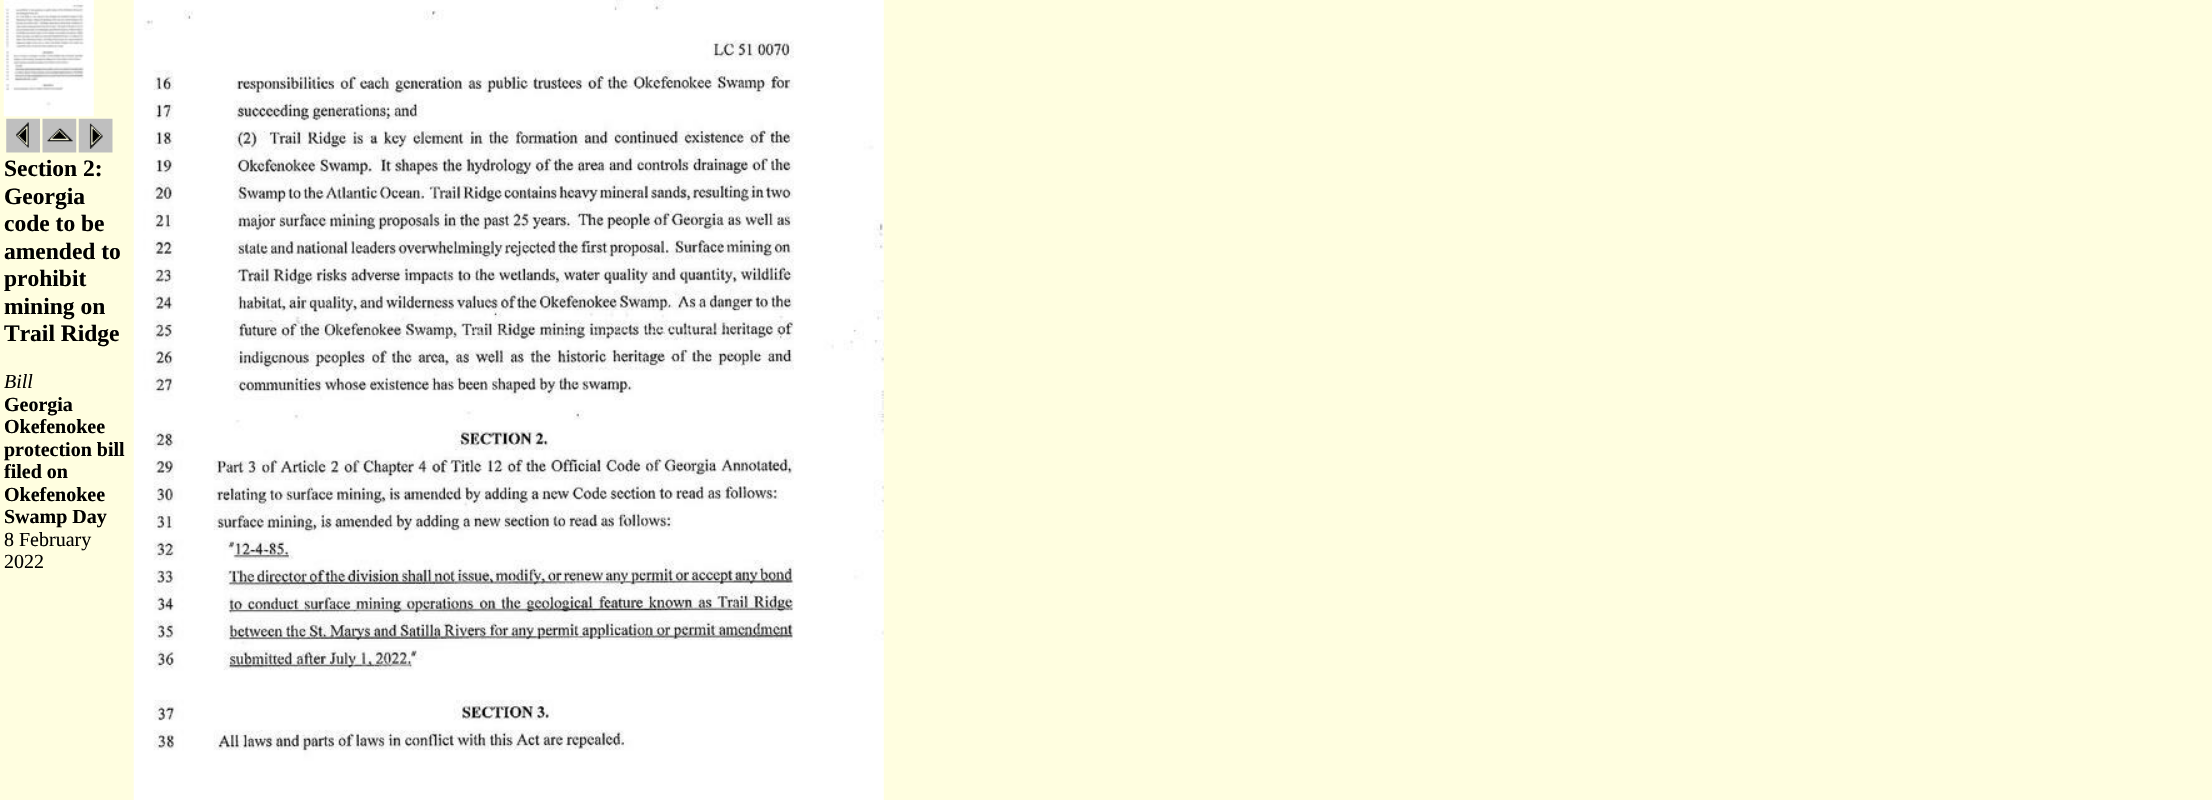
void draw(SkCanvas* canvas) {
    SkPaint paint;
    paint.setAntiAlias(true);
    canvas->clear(0xFFFFFEE0);
    canvas->drawImageRect(SkImages::DeferredFromEncodedData(SkData::MakeFromFileName("img1.png")), SkRect::MakeXYWH(3, 0, 91, 117), SkSamplingOptions());
    canvas->drawImageRect(SkImages::DeferredFromEncodedData(SkData::MakeFromFileName("img2.png")), SkRect::MakeXYWH(6, 118, 34, 35), SkSamplingOptions());
    canvas->drawImageRect(SkImages::DeferredFromEncodedData(SkData::MakeFromFileName("img3.png")), SkRect::MakeXYWH(42, 118, 35, 35), SkSamplingOptions());
    canvas->drawImageRect(SkImages::DeferredFromEncodedData(SkData::MakeFromFileName("img4.png")), SkRect::MakeXYWH(78, 118, 35, 35), SkSamplingOptions());
    SkFont font1(fontMgr->matchFamilyStyle("Liberation Serif", SkFontStyle::Bold()), 23.5f);
    font1.setSubpixel(true);
    paint.setColor(0xFF000000);
    canvas->drawString("Section 2:", 4, 176, font1, paint);
    canvas->drawString("Georgia", 4, 204, font1, paint);
    canvas->drawString("code to be", 4, 231, font1, paint);
    canvas->drawString("amended to", 4, 259, font1, paint);
    canvas->drawString("prohibit", 4, 286, font1, paint);
    canvas->drawString("mining on", 4, 314, font1, paint);
    canvas->drawString("Trail Ridge", 4, 341, font1, paint);
    SkFont font2(fontMgr->matchFamilyStyle("Liberation Serif", SkFontStyle::Italic()), 20);
    font2.setSubpixel(true);
    canvas->drawString("Bill", 4, 388, font2, paint);
    SkFont font3(fontMgr->matchFamilyStyle("Liberation Serif", SkFontStyle::Bold()), 20);
    font3.setSubpixel(true);
    canvas->drawString("Georgia", 4, 411, font3, paint);
    canvas->drawString("Okefenokee", 4, 433, font3, paint);
    canvas->drawString("protection bill", 4, 456, font3, paint);
    canvas->drawString("filed on", 4, 478, font3, paint);
    canvas->drawString("Okefenokee", 4, 501, font3, paint);
    canvas->drawString("Swamp Day", 4, 523, font3, paint);
    SkFont font4(fontMgr->matchFamilyStyle("Liberation Serif", SkFontStyle::Normal()), 20);
    font4.setSubpixel(true);
    canvas->drawString("8 February", 4, 546, font4, paint);
    canvas->drawString("2022", 4, 568, font4, paint);
    canvas->drawImageRect(SkImages::DeferredFromEncodedData(SkData::MakeFromFileName("img5.png")), SkRect::MakeXYWH(133, 0, 751, 800), SkSamplingOptions());
}
